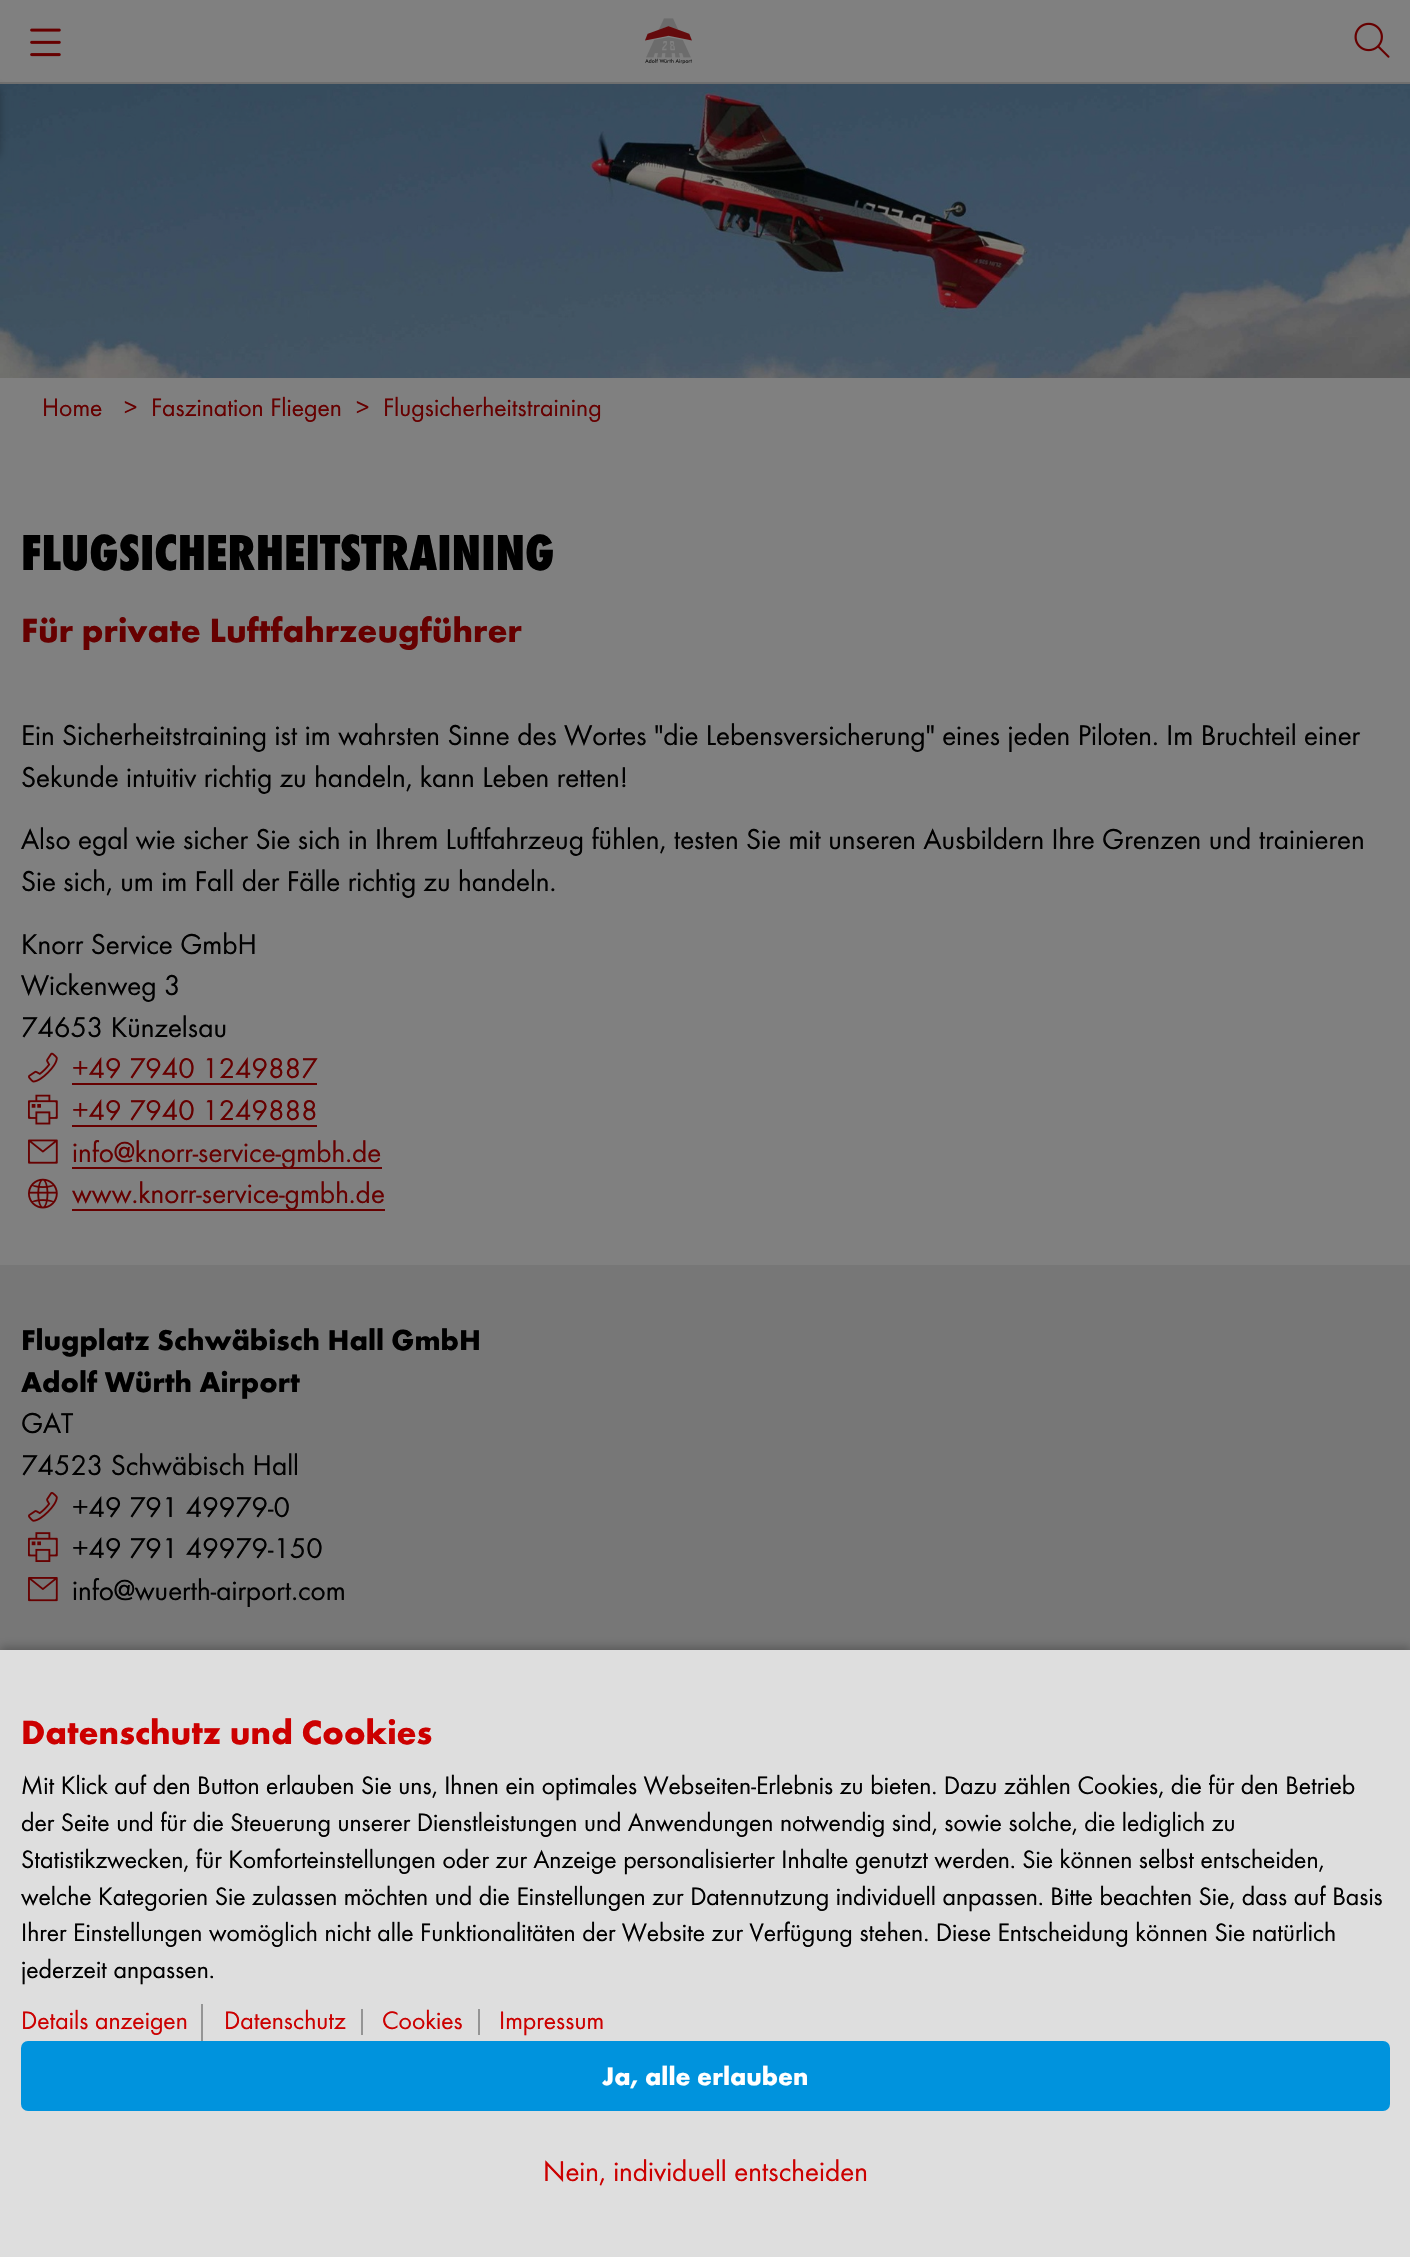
void draw(SkCanvas* canvas) {
    SkPaint paint;
    paint.setAntiAlias(true);
    canvas->clear(0xFF808080);
    paint.setColor(0xFF6F6F6F);
    canvas->drawRect(SkRect::MakeXYWH(0, 82, 1410, 2), paint);
    canvas->drawImageRect(SkImages::DeferredFromEncodedData(SkData::MakeFromFileName("img1.png")), SkRect::MakeXYWH(30, 28, 31, 29), SkSamplingOptions());
    canvas->drawImageRect(SkImages::DeferredFromEncodedData(SkData::MakeFromFileName("img2.png")), SkRect::MakeXYWH(645, 18, 47, 46), SkSamplingOptions());
    canvas->drawImageRect(SkImages::DeferredFromEncodedData(SkData::MakeFromFileName("img3.png")), SkRect::MakeXYWH(1354, 22, 36, 36), SkSamplingOptions());
    canvas->drawImageRect(SkImages::DeferredFromEncodedData(SkData::MakeFromFileName("img4.png")), SkRect::MakeXYWH(0, 84, 1410, 294), SkSamplingOptions());
    paint.setColor(0x42000000);
    paint.setMaskFilter(SkMaskFilter::MakeBlur(kNormal_SkBlurStyle, 4.5f));
    canvas->drawRoundRect(SkRect::MakeXYWH(-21, 88, 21, 70), 7, 7, paint);
    paint.setMaskFilter(nullptr);
    SkFont font1(fontMgr->matchFamilyStyle("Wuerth", SkFontStyle::Normal()), 26.25f);
    font1.setSubpixel(true);
    paint.setColor(0xFF660000);
    canvas->drawString("Home", 42, 416, font1, paint);
    canvas->drawString(">", 124, 416, font1, paint);
    canvas->drawString("Faszination Fliegen", 151, 416, font1, paint);
    canvas->drawString(">", 356, 416, font1, paint);
    canvas->drawString("Flugsicherheitstraining", 383, 416, font1, paint);
    SkFont font2(fontMgr->matchFamilyStyle("Wuerth", SkFontStyle(800, SkFontStyle::kNormal_Width, SkFontStyle::kUpright_Slant)), 52.5f);
    font2.setSubpixel(true);
    paint.setColor(0xFF000000);
    canvas->drawString("FLUGSICHERHEITSTRAINING", 21, 570, font2, paint);
    SkFont font3(fontMgr->matchFamilyStyle("Wuerth", SkFontStyle::Bold()), 35);
    font3.setSubpixel(true);
    paint.setColor(0xFF660000);
    canvas->drawString("Für private Luftfahrzeugführer", 21, 642, font3, paint);
    SkFont font4(fontMgr->matchFamilyStyle("Wuerth", SkFontStyle::Normal()), 29.75f);
    font4.setSubpixel(true);
    paint.setColor(0xFF000000);
    canvas->drawString("Ein Sicherheitstraining ist im wahrsten Sinne des Wortes \"die Lebensversicherung\" eines jeden Piloten. Im Bruchteil einer", 21, 745, font4, paint);
    canvas->drawString("Sekunde intuitiv richtig zu handeln, kann Leben retten!", 21, 787, font4, paint);
    canvas->drawString("Also egal wie sicher Sie sich in Ihrem Luftfahrzeug fühlen, testen Sie mit unseren Ausbildern Ihre Grenzen und trainieren", 21, 849, font4, paint);
    canvas->drawString("Sie sich, um im Fall der Fälle richtig zu handeln.", 21, 891, font4, paint);
    canvas->drawString("Knorr Service GmbH", 21, 954, font4, paint);
    canvas->drawString("Wickenweg 3", 21, 995, font4, paint);
    canvas->drawString("74653 Künzelsau", 21, 1037, font4, paint);
    canvas->drawImageRect(SkImages::DeferredFromEncodedData(SkData::MakeFromFileName("img5.png")), SkRect::MakeXYWH(28, 1052, 30, 31), SkSamplingOptions());
    paint.setColor(0xFF660000);
    canvas->drawString("+49 7940 1249887", 72, 1078, font4, paint);
    canvas->drawRect(SkRect::MakeXYWH(72, 1083, 245, 2), paint);
    canvas->drawImageRect(SkImages::DeferredFromEncodedData(SkData::MakeFromFileName("img6.png")), SkRect::MakeXYWH(28, 1094, 30, 31), SkSamplingOptions());
    canvas->drawString("+49 7940 1249888", 72, 1120, font4, paint);
    canvas->drawRect(SkRect::MakeXYWH(72, 1125, 245, 2), paint);
    canvas->drawImageRect(SkImages::DeferredFromEncodedData(SkData::MakeFromFileName("img7.png")), SkRect::MakeXYWH(28, 1139, 30, 25), SkSamplingOptions());
    canvas->drawRect(SkRect::MakeXYWH(72, 1167, 310, 2), paint);
    canvas->drawString("info@knorr-service-gmbh.de", 72, 1162, font4, paint);
    canvas->drawImageRect(SkImages::DeferredFromEncodedData(SkData::MakeFromFileName("img8.png")), SkRect::MakeXYWH(28, 1178, 30, 31), SkSamplingOptions());
    canvas->drawRect(SkRect::MakeXYWH(72, 1209, 313, 2), paint);
    canvas->drawString("www.knorr-service-gmbh.de", 72, 1203, font4, paint);
    paint.setColor(0xFF777777);
    canvas->drawRect(SkRect::MakeXYWH(0, 1265, 1410, 385), paint);
    SkFont font5(fontMgr->matchFamilyStyle("Wuerth", SkFontStyle::Bold()), 29.75f);
    font5.setSubpixel(true);
    paint.setColor(0xFF000000);
    canvas->drawString("Flugplatz Schwäbisch Hall GmbH", 21, 1350, font5, paint);
    canvas->drawString("Adolf Würth Airport", 21, 1392, font5, paint);
    canvas->drawString("GAT", 21, 1433, font4, paint);
    canvas->drawString("74523 Schwäbisch Hall", 21, 1475, font4, paint);
    canvas->drawImageRect(SkImages::DeferredFromEncodedData(SkData::MakeFromFileName("img9.png")), SkRect::MakeXYWH(28, 1492, 30, 30), SkSamplingOptions());
    canvas->drawString("+49 791 49979-0", 72, 1517, font4, paint);
    canvas->drawImageRect(SkImages::DeferredFromEncodedData(SkData::MakeFromFileName("img10.png")), SkRect::MakeXYWH(28, 1532, 30, 30), SkSamplingOptions());
    canvas->drawString("+49 791 49979-150", 72, 1558, font4, paint);
    canvas->drawImageRect(SkImages::DeferredFromEncodedData(SkData::MakeFromFileName("img11.png")), SkRect::MakeXYWH(28, 1577, 30, 25), SkSamplingOptions());
    canvas->drawString("info@wuerth-airport.com", 72, 1600, font4, paint);
    paint.setColor(0x42000000);
    paint.setMaskFilter(SkMaskFilter::MakeBlur(kNormal_SkBlurStyle, 4.5f));
    canvas->drawRect(SkRect::MakeXYWH(0, 1647, 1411, 607), paint);
    paint.setMaskFilter(nullptr);
    paint.setColor(0xFFDEDEDE);
    canvas->drawRect(SkRect::MakeXYWH(0, 1650, 1410, 607), paint);
    paint.setColor(0xFFCC0000);
    canvas->drawString("Datenschutz und Cookies", 21, 1744, font3, paint);
    paint.setColor(0xFF000000);
    canvas->drawString("Mit Klick auf den Button erlauben Sie uns, Ihnen ein optimales Webseiten-Erlebnis zu bieten. Dazu zählen Cookies, die für den Betrieb", 21, 1794, font1, paint);
    canvas->drawString("der Seite und für die Steuerung unserer Dienstleistungen und Anwendungen notwendig sind, sowie solche, die lediglich zu", 21, 1831, font1, paint);
    canvas->drawString("Statistikzwecken, für Komforteinstellungen oder zur Anzeige personalisierter Inhalte genutzt werden. Sie können selbst entscheiden,", 21, 1868, font1, paint);
    canvas->drawString("welche Kategorien Sie zulassen möchten und die Einstellungen zur Datennutzung individuell anpassen. Bitte beachten Sie, dass auf Basis", 21, 1905, font1, paint);
    canvas->drawString("Ihrer Einstellungen womöglich nicht alle Funktionalitäten der Website zur Verfügung stehen. Diese Entscheidung können Sie natürlich", 21, 1941, font1, paint);
    canvas->drawString("jederzeit anpassen.", 21, 1978, font1, paint);
    paint.setColor(0xFF959595);
    canvas->drawRect(SkRect::MakeXYWH(201, 2004, 2, 37), paint);
    paint.setColor(0xFFCC0000);
    canvas->drawString("Details anzeigen", 21, 2029, font1, paint);
    canvas->drawString("Datenschutz", 224, 2029, font1, paint);
    paint.setColor(0xFF959595);
    canvas->drawRect(SkRect::MakeXYWH(361, 2009, 2, 26), paint);
    paint.setColor(0xFFCC0000);
    canvas->drawString("Cookies", 382, 2029, font1, paint);
    paint.setColor(0xFF959595);
    canvas->drawRect(SkRect::MakeXYWH(478, 2009, 2, 26), paint);
    paint.setColor(0xFFCC0000);
    canvas->drawString("Impressum", 499, 2029, font1, paint);
    paint.setColor(0xFF0093DD);
    canvas->drawRoundRect(SkRect::MakeXYWH(21, 2041, 1369, 70), 7, 7, paint);
    SkFont font6(fontMgr->matchFamilyStyle("Wuerth", SkFontStyle::Bold()), 26.25f);
    font6.setSubpixel(true);
    paint.setColor(0xFFFFFFFF);
    canvas->drawString("Ja, alle erlauben", 602, 2085, font6, paint);
    paint.setColor(0xFFCC0000);
    canvas->drawString("Nein, individuell entscheiden", 543, 2181, font4, paint);
}
